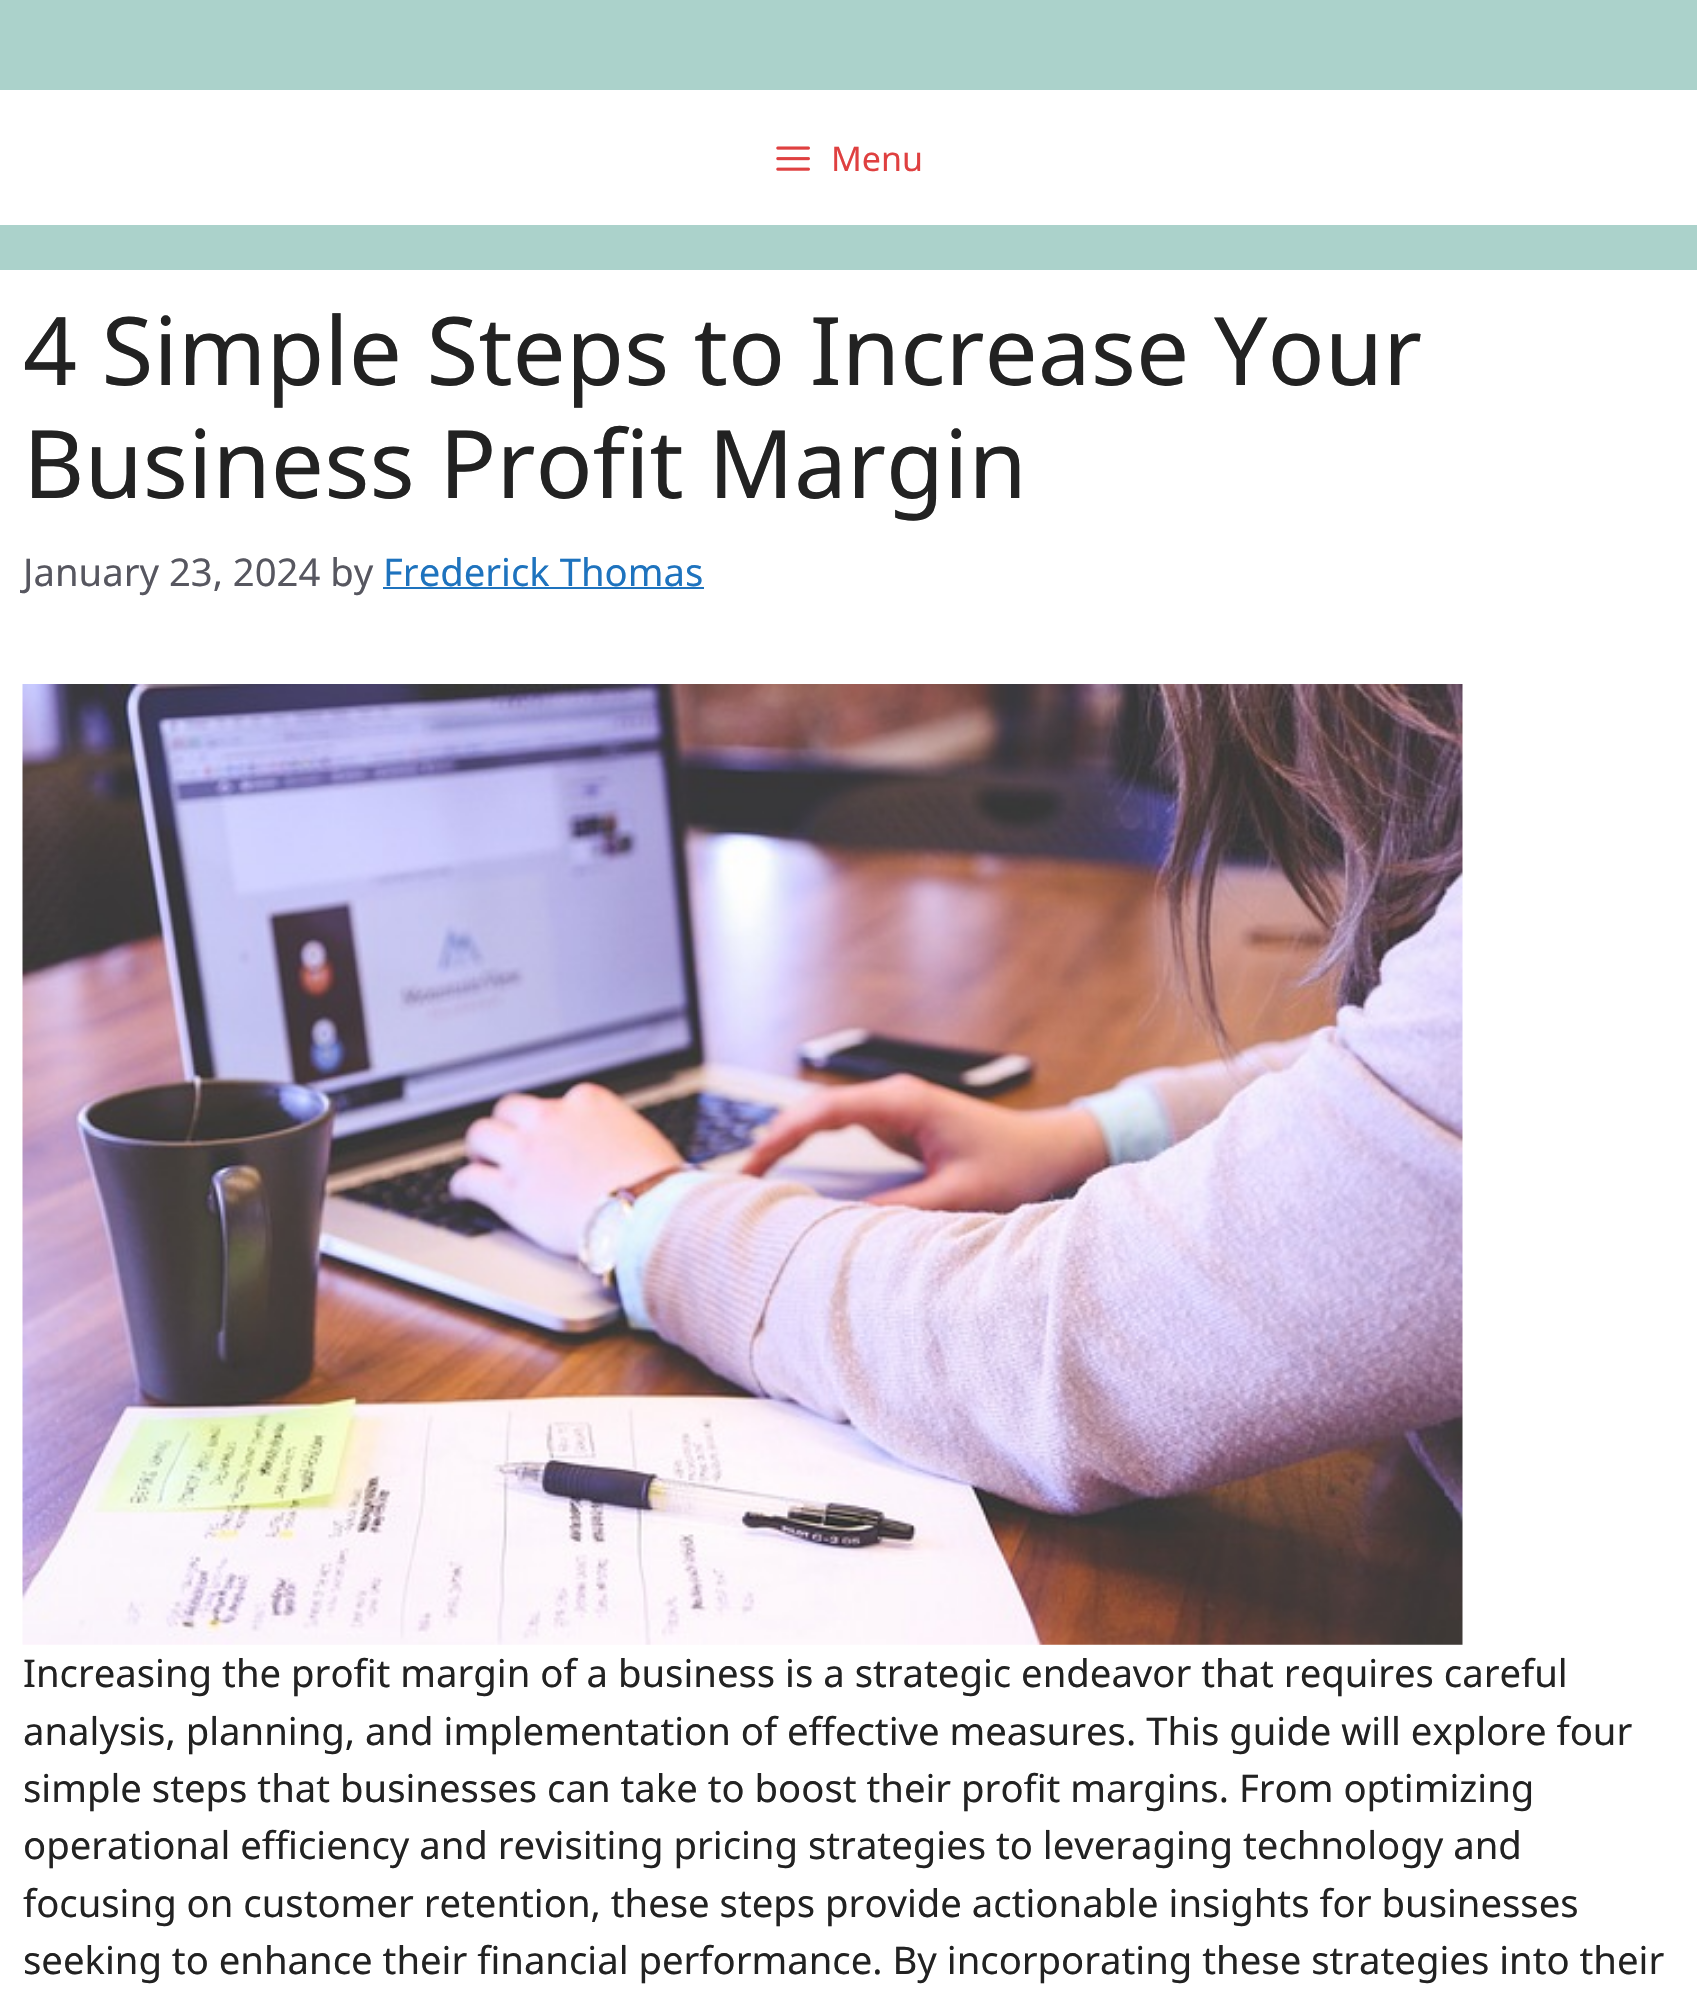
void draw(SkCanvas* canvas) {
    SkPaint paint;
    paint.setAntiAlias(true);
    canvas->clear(0xFFABD2CB);
    paint.setColor(0xFFFFFFFF);
    canvas->drawRect(SkRect::MakeXYWH(0, 90, 1697, 135), paint);
    canvas->drawImageRect(SkImages::DeferredFromEncodedData(SkData::MakeFromFileName("img1.png")), SkRect::MakeXYWH(776, 146, 34, 25), SkSamplingOptions());
    SkFont font1(fontMgr->matchFamilyStyle("Noto Sans", SkFontStyle::Normal()), 34);
    font1.setSubpixel(true);
    paint.setColor(0xFFDF4040);
    canvas->drawString("Menu", 831, 171, font1, paint);
    paint.setColor(0xFFFFFFFF);
    canvas->drawRect(SkRect::MakeXYWH(0, 270, 1697, 1725), paint);
    SkFont font2(fontMgr->matchFamilyStyle("Noto Sans", SkFontStyle::Normal()), 94.5f);
    font2.setSubpixel(true);
    paint.setColor(0xFF222222);
    canvas->drawString("4 Simple Steps to Increase Your", 23, 385, font2, paint);
    canvas->drawString("Business Profit Margin", 23, 498, font2, paint);
    SkFont font3(fontMgr->matchFamilyStyle("Noto Sans", SkFontStyle::Normal()), 38.25f);
    font3.setSubpixel(true);
    paint.setColor(0xFF575760);
    canvas->drawString("January 23, 2024 by", 23, 586, font3, paint);
    paint.setColor(0xFF1E73BE);
    canvas->drawString("Frederick Thomas", 383, 586, font3, paint);
    canvas->drawRect(SkRect::MakeXYWH(383, 587, 321, 2), paint);
    canvas->drawImageRect(SkImages::DeferredFromEncodedData(SkData::MakeFromFileName("img2.png")), SkRect::MakeXYWH(22, 684, 1441, 961), SkSamplingOptions());
    paint.setColor(0xFF222222);
    canvas->drawString("Increasing the profit margin of a business is a strategic endeavor that requires careful", 23, 1687, font3, paint);
    canvas->drawString("analysis, planning, and implementation of effective measures. This guide will explore four", 23, 1745, font3, paint);
    canvas->drawString("simple steps that businesses can take to boost their profit margins. From optimizing", 23, 1802, font3, paint);
    canvas->drawString("operational efficiency and revisiting pricing strategies to leveraging technology and", 23, 1859, font3, paint);
    canvas->drawString("focusing on customer retention, these steps provide actionable insights for businesses", 23, 1917, font3, paint);
    canvas->drawString("seeking to enhance their financial performance. By incorporating these strategies into their", 23, 1974, font3, paint);
}
